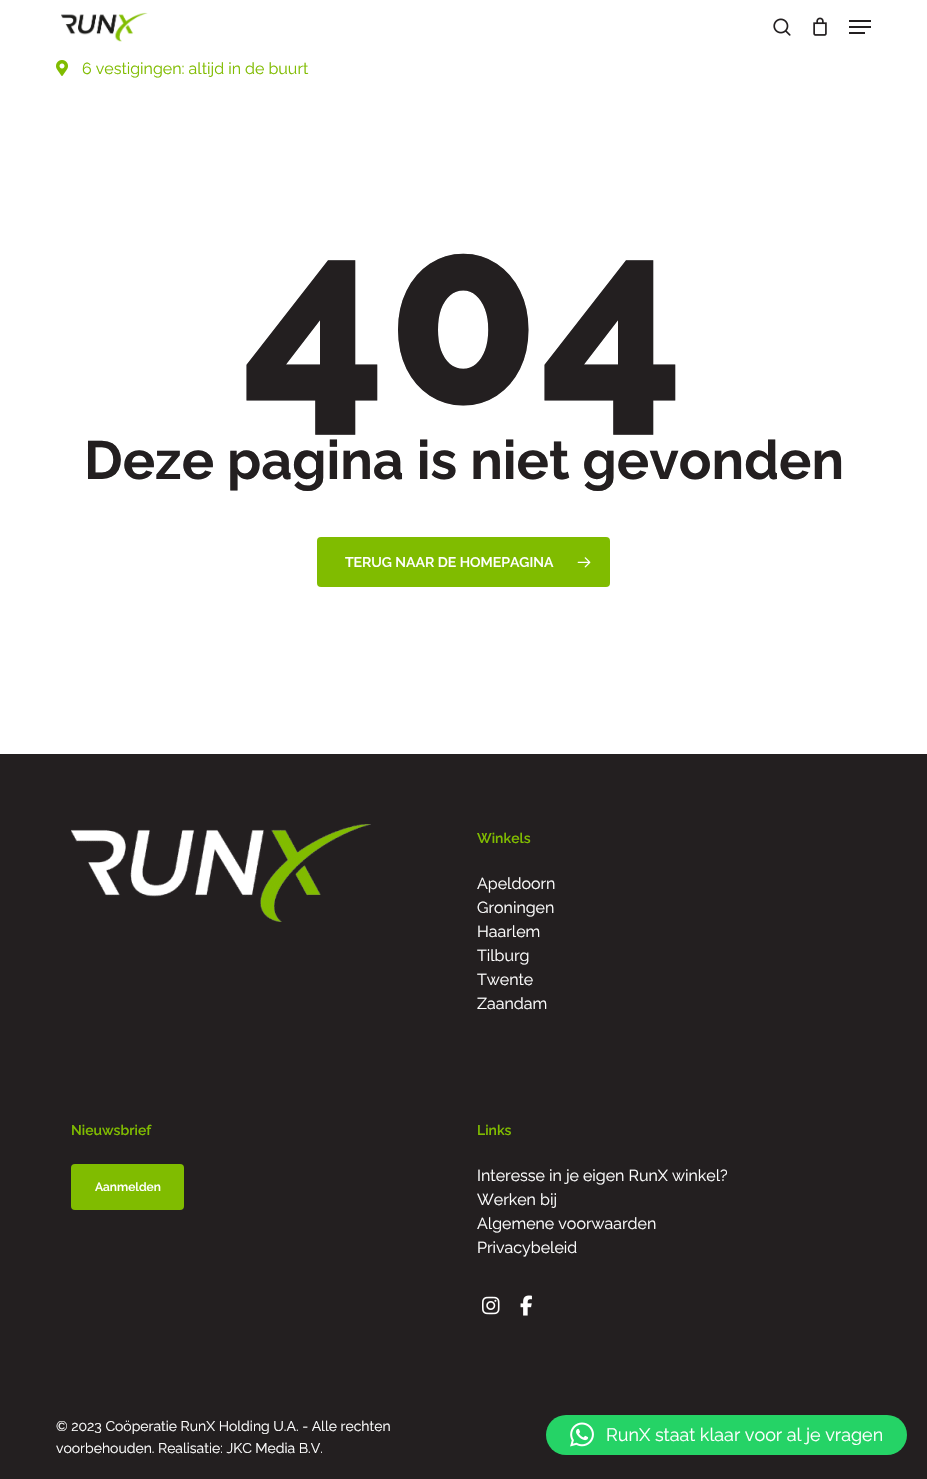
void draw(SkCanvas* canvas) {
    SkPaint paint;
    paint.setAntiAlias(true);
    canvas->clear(0xFFFFFFFF);
    canvas->drawImageRect(SkImages::DeferredFromEncodedData(SkData::MakeFromFileName("img1.png")), SkRect::MakeXYWH(61, 12, 87, 30), SkSamplingOptions());
    canvas->drawImageRect(SkImages::DeferredFromEncodedData(SkData::MakeFromFileName("img2.png")), SkRect::MakeXYWH(773, 18, 18, 18), SkSamplingOptions());
    canvas->drawImageRect(SkImages::DeferredFromEncodedData(SkData::MakeFromFileName("img3.png")), SkRect::MakeXYWH(813, 17, 14, 19), SkSamplingOptions());
    paint.setColor(0xFF231F20);
    canvas->drawRect(SkRect::MakeXYWH(849, 20, 22, 2), paint);
    canvas->drawRect(SkRect::MakeXYWH(849, 32, 16, 2), paint);
    canvas->drawRect(SkRect::MakeXYWH(849, 26, 22, 2), paint);
    canvas->drawImageRect(SkImages::DeferredFromEncodedData(SkData::MakeFromFileName("img4.png")), SkRect::MakeXYWH(56, 60, 12, 16), SkSamplingOptions());
    SkFont font1(fontMgr->matchFamilyStyle("Raleway", SkFontStyle::Normal()), 16);
    font1.setSubpixel(true);
    paint.setColor(0xFF80BC00);
    canvas->drawString("6 vestigingen: altijd in de buurt", 82, 74, font1, paint);
    SkFont font2(fontMgr->matchFamilyStyle("Raleway", SkFontStyle(800, SkFontStyle::kNormal_Width, SkFontStyle::kUpright_Slant)), 250);
    font2.setSubpixel(true);
    paint.setColor(0xFF231F20);
    canvas->drawString("404", 242, 403, font2, paint);
    SkFont font3(fontMgr->matchFamilyStyle("Raleway", SkFontStyle::Bold()), 54);
    font3.setSubpixel(true);
    canvas->drawString("Deze pagina is niet gevonden", 84, 479, font3, paint);
    paint.setColor(0xFF80BC00);
    canvas->drawRoundRect(SkRect::MakeXYWH(317, 537, 293, 50), 4, 4, paint);
    SkFont font4(fontMgr->matchFamilyStyle("Raleway", SkFontStyle(600, SkFontStyle::kNormal_Width, SkFontStyle::kUpright_Slant)), 14);
    font4.setSubpixel(true);
    paint.setColor(0xFFFFFFFF);
    canvas->drawString("TERUG NAAR DE HOMEPAGINA", 345, 567, font4, paint);
    canvas->drawImageRect(SkImages::DeferredFromEncodedData(SkData::MakeFromFileName("img5.png")), SkRect::MakeXYWH(577, 557, 14, 11), SkSamplingOptions());
    paint.setColor(0xFF231F20);
    canvas->drawRect(SkRect::MakeXYWH(0, 754, 927, 725), paint);
    canvas->drawImageRect(SkImages::DeferredFromEncodedData(SkData::MakeFromFileName("img6.png")), SkRect::MakeXYWH(71, 824, 300, 98), SkSamplingOptions());
    paint.setColor(0xFF80BC00);
    canvas->drawString("Winkels", 477, 843, font4, paint);
    paint.setColor(0xFFFFFFFF);
    canvas->drawString("Apeldoorn", 477, 889, font1, paint);
    canvas->drawString("Groningen", 477, 913, font1, paint);
    canvas->drawString("Haarlem", 477, 937, font1, paint);
    canvas->drawString("Tilburg", 477, 961, font1, paint);
    canvas->drawString("Twente", 477, 985, font1, paint);
    canvas->drawString("Zaandam", 477, 1009, font1, paint);
    paint.setColor(0xFF80BC00);
    canvas->drawString("Nieuwsbrief", 71, 1135, font4, paint);
    canvas->drawRoundRect(SkRect::MakeXYWH(71, 1164, 113, 46), 4, 4, paint);
    SkFont font5(fontMgr->matchFamilyStyle("Raleway", SkFontStyle(600, SkFontStyle::kNormal_Width, SkFontStyle::kUpright_Slant)), 12);
    font5.setSubpixel(true);
    paint.setColor(0xFFFFFFFF);
    canvas->drawString("Aanmelden", 95, 1191, font5, paint);
    paint.setColor(0xFF80BC00);
    canvas->drawString("Links", 477, 1135, font4, paint);
    paint.setColor(0xFFFFFFFF);
    canvas->drawString("Interesse in je eigen RunX winkel?", 477, 1181, font1, paint);
    canvas->drawString("Werken bij", 477, 1205, font1, paint);
    canvas->drawString("Algemene voorwaarden", 477, 1229, font1, paint);
    canvas->drawString("Privacybeleid", 477, 1253, font1, paint);
    canvas->drawImageRect(SkImages::DeferredFromEncodedData(SkData::MakeFromFileName("img7.png")), SkRect::MakeXYWH(482, 1296, 18, 19), SkSamplingOptions());
    canvas->drawImageRect(SkImages::DeferredFromEncodedData(SkData::MakeFromFileName("img8.png")), SkRect::MakeXYWH(520, 1295, 12, 21), SkSamplingOptions());
    SkFont font6(fontMgr->matchFamilyStyle("Raleway", SkFontStyle::Normal()), 14);
    font6.setSubpixel(true);
    canvas->drawString("© 2023 Coöperatie RunX Holding U.A. - Alle rechten", 56, 1431, font6, paint);
    canvas->drawString("voorbehouden. Realisatie: JKC Media B.V.", 56, 1453, font6, paint);
    paint.setColor(0xFF25D366);
    canvas->drawRoundRect(SkRect::MakeXYWH(546, 1415, 361, 40), 20, 20, paint);
    canvas->drawImageRect(SkImages::DeferredFromEncodedData(SkData::MakeFromFileName("img9.png")), SkRect::MakeXYWH(570, 1422, 24, 25), SkSamplingOptions());
    SkFont font7(fontMgr->matchFamilyStyle("Raleway", SkFontStyle::Normal()), 18);
    font7.setSubpixel(true);
    paint.setColor(0xFFFFFFFF);
    canvas->drawString("RunX staat klaar voor al je vragen", 606, 1441, font7, paint);
}
